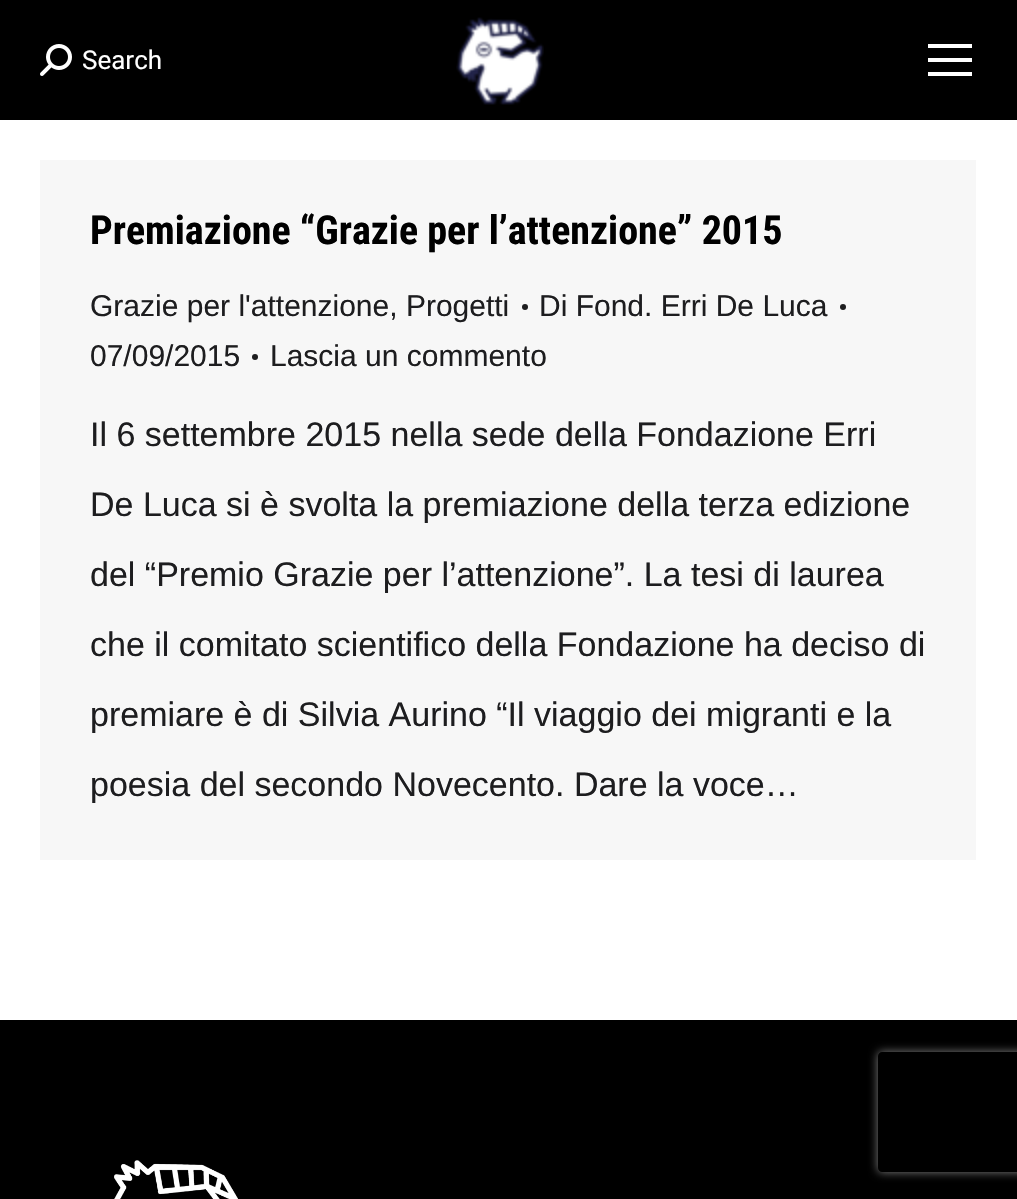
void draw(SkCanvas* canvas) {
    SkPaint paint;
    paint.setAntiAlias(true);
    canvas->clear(0xFFFFFFFF);
    paint.setColor(0xFF000000);
    canvas->drawRect(SkRect::MakeXYWH(0, 0, 1017, 120), paint);
    canvas->drawImageRect(SkImages::DeferredFromEncodedData(SkData::MakeFromFileName("img1.png")), SkRect::MakeXYWH(40, 44, 32, 32), SkSamplingOptions());
    SkFont font1(fontMgr->matchFamilyStyle("Roboto", SkFontStyle::Normal()), 26);
    font1.setSubpixel(true);
    paint.setColor(0xFFFFFFFF);
    canvas->drawString("Search", 82, 69, font1, paint);
    canvas->drawImageRect(SkImages::DeferredFromEncodedData(SkData::MakeFromFileName("img2.png")), SkRect::MakeXYWH(456, 17, 88, 88), SkSamplingOptions());
    canvas->drawRect(SkRect::MakeXYWH(928, 44, 44, 4), paint);
    canvas->drawRect(SkRect::MakeXYWH(928, 58, 44, 4), paint);
    canvas->drawRect(SkRect::MakeXYWH(928, 72, 44, 4), paint);
    paint.setColor(0xFFF7F7F7);
    canvas->drawRect(SkRect::MakeXYWH(40, 160, 936, 700), paint);
    SkFont font2(fontMgr->matchFamilyStyle("Roboto Condensed", SkFontStyle::Bold()), 40);
    font2.setSubpixel(true);
    paint.setColor(0xFF000000);
    canvas->drawString("Premiazione “Grazie per l’attenzione” 2015", 90, 244, font2, paint);
    SkFont font3(fontMgr->matchFamilyStyle("Liberation Sans", SkFontStyle::Normal()), 30);
    font3.setSubpixel(true);
    paint.setColor(0xFF1D1D1F);
    canvas->drawString("Grazie per l'attenzione, Progetti", 90, 316, font3, paint);
    canvas->drawCircle(525, 307, 3, paint);
    canvas->drawString("Di Fond. Erri De Luca", 539, 316, font3, paint);
    canvas->drawCircle(843, 307, 3, paint);
    canvas->drawString("07/09/2015", 90, 366, font3, paint);
    canvas->drawCircle(255, 357, 3, paint);
    canvas->drawString("Lascia un commento", 270, 366, font3, paint);
    SkFont font4(fontMgr->matchFamilyStyle("Liberation Sans", SkFontStyle::Normal()), 34);
    font4.setSubpixel(true);
    canvas->drawString("Il 6 settembre 2015 nella sede della Fondazione Erri", 90, 446, font4, paint);
    canvas->drawString("De Luca si è svolta la premiazione della terza edizione", 90, 516, font4, paint);
    canvas->drawString("del “Premio Grazie per l’attenzione”. La tesi di laurea", 90, 586, font4, paint);
    canvas->drawString("che il comitato scientifico della Fondazione ha deciso di", 90, 656, font4, paint);
    canvas->drawString("premiare è di Silvia Aurino “Il viaggio dei migranti e la", 90, 726, font4, paint);
    canvas->drawString("poesia del secondo Novecento. Dare la voce…", 90, 796, font4, paint);
    paint.setColor(0xFF000000);
    canvas->drawRect(SkRect::MakeXYWH(0, 1020, 1017, 179), paint);
    canvas->drawImageRect(SkImages::DeferredFromEncodedData(SkData::MakeFromFileName("img3.png")), SkRect::MakeXYWH(114, 1160, 124, 39), SkSamplingOptions());
    canvas->save();
    canvas->clipPath(SkPathBuilder(SkPathFillType::kEvenOdd).moveTo(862, 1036).lineTo(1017, 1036).lineTo(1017, 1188).lineTo(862, 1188).close().moveTo(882, 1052).lineTo(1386, 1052).cubicTo(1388, 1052, 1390, 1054, 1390, 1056).lineTo(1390, 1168).cubicTo(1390, 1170, 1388, 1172, 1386, 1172).lineTo(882, 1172).cubicTo(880, 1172, 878, 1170, 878, 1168).lineTo(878, 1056).cubicTo(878, 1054, 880, 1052, 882, 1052).close().detach(), true);
    paint.setColor(0xFF808080);
    paint.setMaskFilter(SkMaskFilter::MakeBlur(kNormal_SkBlurStyle, 5));
    canvas->drawRoundRect(SkRect::MakeXYWH(878, 1052, 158, 120), 4, 4, paint);
    paint.setMaskFilter(nullptr);
    canvas->restore();
}
